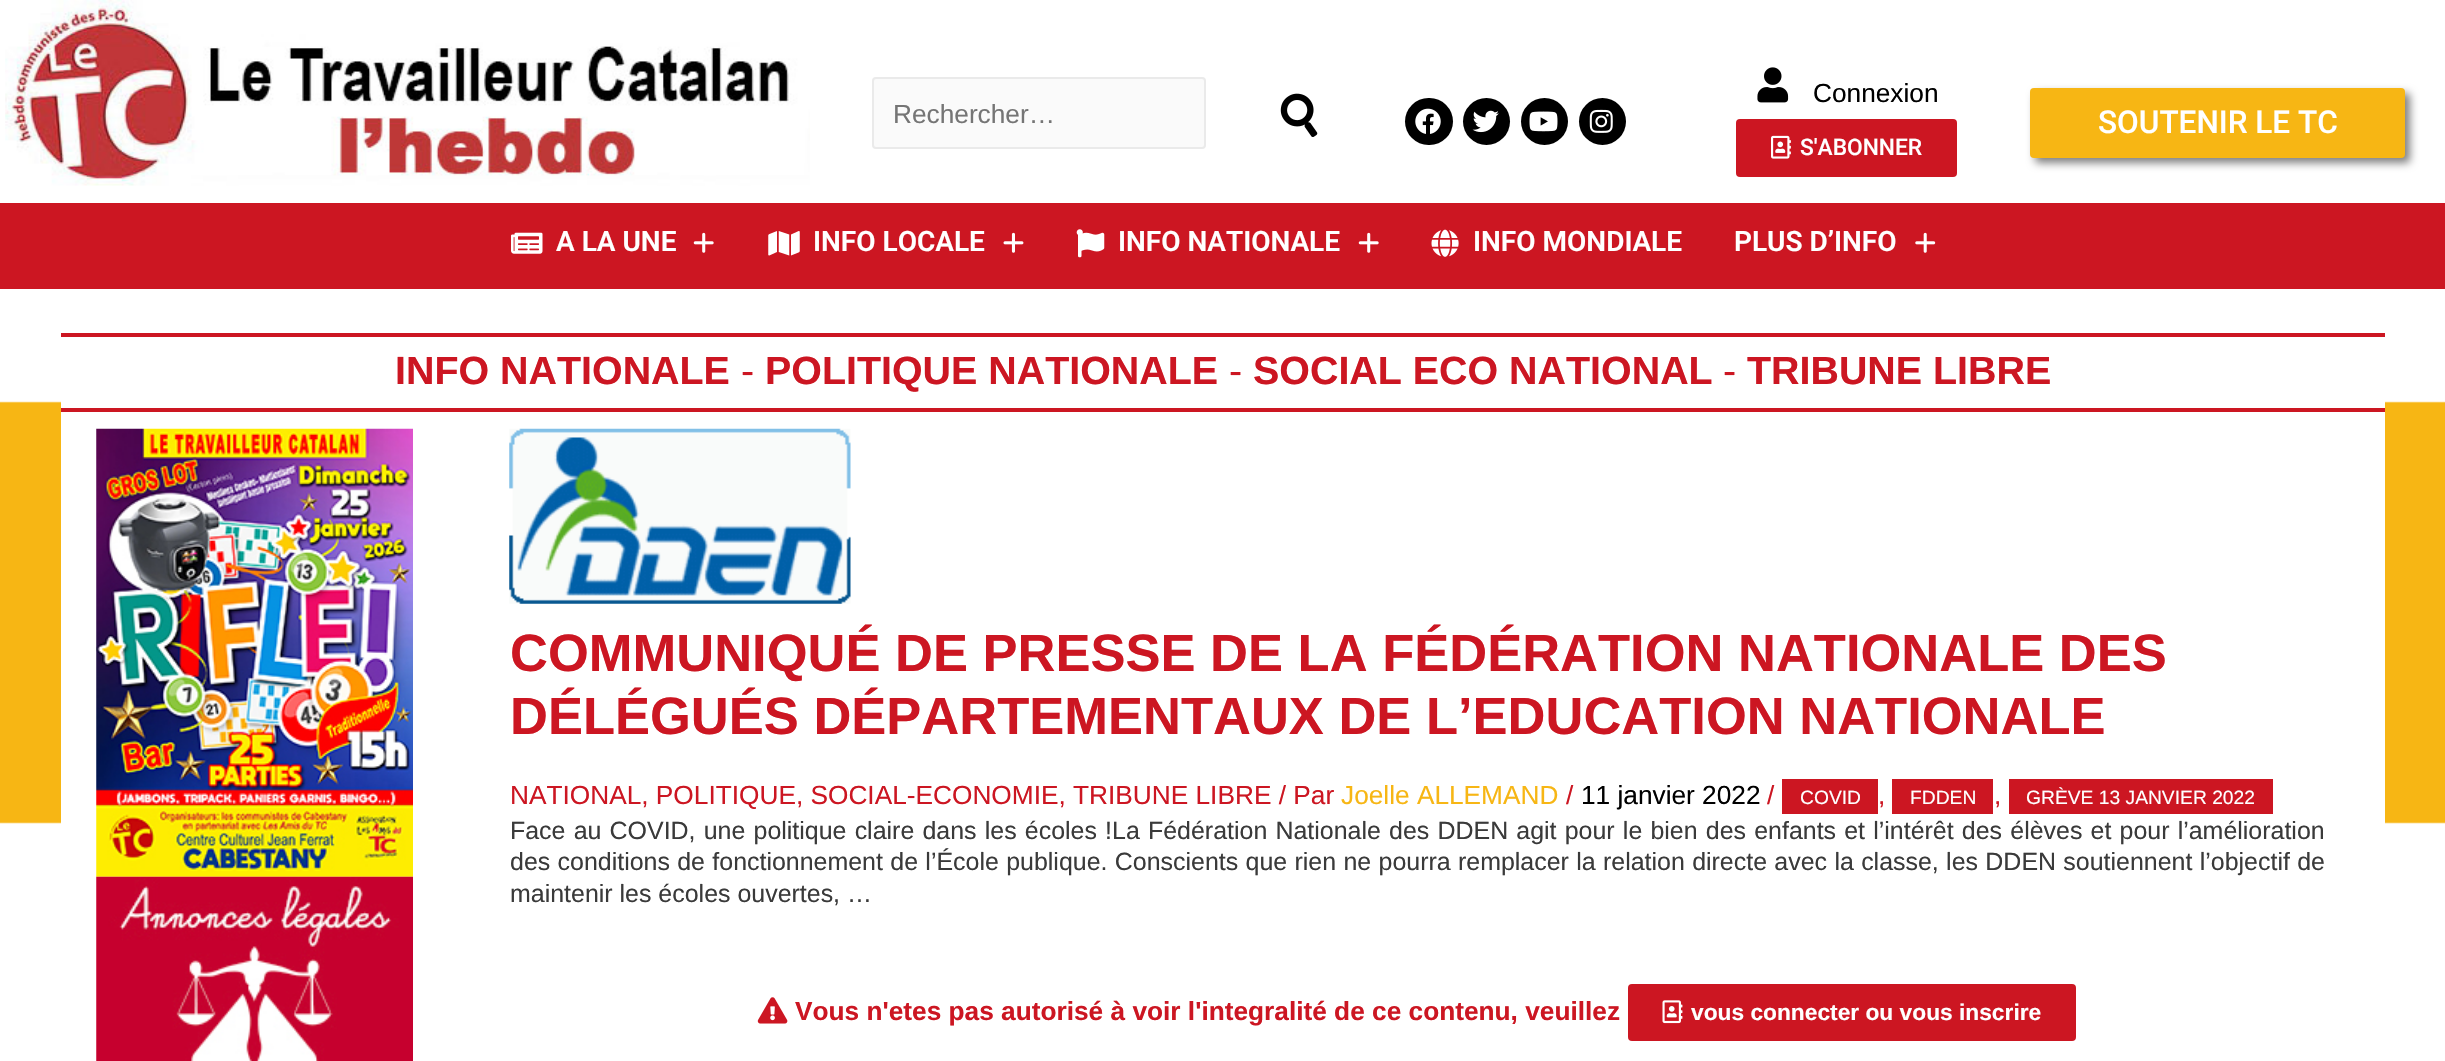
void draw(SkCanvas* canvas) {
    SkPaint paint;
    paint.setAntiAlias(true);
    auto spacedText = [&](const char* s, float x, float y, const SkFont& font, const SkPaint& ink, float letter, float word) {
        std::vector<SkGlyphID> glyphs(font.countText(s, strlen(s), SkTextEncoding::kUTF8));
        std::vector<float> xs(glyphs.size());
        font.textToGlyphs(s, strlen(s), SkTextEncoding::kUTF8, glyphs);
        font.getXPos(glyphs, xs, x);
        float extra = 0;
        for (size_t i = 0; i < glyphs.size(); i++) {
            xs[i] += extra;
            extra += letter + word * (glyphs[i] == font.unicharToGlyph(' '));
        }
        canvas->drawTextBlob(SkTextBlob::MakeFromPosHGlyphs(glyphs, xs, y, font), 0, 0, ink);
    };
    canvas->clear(0xFFFFFFFF);
    canvas->drawImageRect(SkImages::DeferredFromEncodedData(SkData::MakeFromFileName("img1.png")), SkRect::MakeXYWH(5, 0, 805, 186), SkSamplingOptions());
    paint.setColor(0xFFFAFAFA);
    canvas->drawRoundRect(SkRect::MakeXYWH(873, 78, 332, 70), 3, 3, paint);
    paint.setStyle(SkPaint::kStroke_Style);
    paint.setStrokeWidth(2);
    paint.setColor(0xFFEAEAEA);
    canvas->drawRoundRect(SkRect::MakeXYWH(873, 78, 332, 70), 3, 3, paint);
    SkFont font1(fontMgr->matchFamilyStyle("Liberation Sans", SkFontStyle::Normal()), 26.25f);
    font1.setSubpixel(true);
    paint.setStyle(SkPaint::kFill_Style);
    paint.setColor(0xFF757575);
    canvas->drawString("Rechercher…", 893, 123, font1, paint);
    canvas->drawImageRect(SkImages::DeferredFromEncodedData(SkData::MakeFromFileName("img2.png")), SkRect::MakeXYWH(1280, 93, 38, 44), SkSamplingOptions());
    paint.setColor(0xFF000000);
    canvas->drawRoundRect(SkRect::MakeXYWH(1405, 98, 48, 47), 23.5f, 23.5f, paint);
    canvas->drawImageRect(SkImages::DeferredFromEncodedData(SkData::MakeFromFileName("img3.png")), SkRect::MakeXYWH(1415, 108, 26, 26), SkSamplingOptions());
    canvas->drawCircle(1486.5f, 121.5f, 23.5f, paint);
    canvas->drawImageRect(SkImages::DeferredFromEncodedData(SkData::MakeFromFileName("img4.png")), SkRect::MakeXYWH(1472, 110, 27, 23), SkSamplingOptions());
    canvas->drawCircle(1544.5f, 121.5f, 23.5f, paint);
    canvas->drawImageRect(SkImages::DeferredFromEncodedData(SkData::MakeFromFileName("img5.png")), SkRect::MakeXYWH(1529, 111, 29, 21), SkSamplingOptions());
    canvas->drawCircle(1602.5f, 121.5f, 23.5f, paint);
    canvas->drawImageRect(SkImages::DeferredFromEncodedData(SkData::MakeFromFileName("img6.png")), SkRect::MakeXYWH(1589, 109, 24, 24), SkSamplingOptions());
    canvas->drawImageRect(SkImages::DeferredFromEncodedData(SkData::MakeFromFileName("img7.png")), SkRect::MakeXYWH(1757, 67, 32, 36), SkSamplingOptions());
    canvas->drawString("Connexion", 1813, 102, font1, paint);
    paint.setColor(0xFFCC1622);
    canvas->drawRoundRect(SkRect::MakeXYWH(1736, 119, 221, 58), 4, 4, paint);
    canvas->drawImageRect(SkImages::DeferredFromEncodedData(SkData::MakeFromFileName("img8.png")), SkRect::MakeXYWH(1771, 135, 20, 24), SkSamplingOptions());
    SkFont font2(fontMgr->matchFamilyStyle("Roboto", SkFontStyle(500, SkFontStyle::kNormal_Width, SkFontStyle::kUpright_Slant)), 22.75f);
    font2.setSubpixel(true);
    paint.setColor(0xFFFFFFFF);
    canvas->drawString("S'ABONNER", 1800, 155, font2, paint);
    paint.setColor(0x80000000);
    paint.setMaskFilter(SkMaskFilter::MakeBlur(kNormal_SkBlurStyle, 4.5f));
    canvas->drawRoundRect(SkRect::MakeXYWH(2035, 93, 375, 70), 4, 4, paint);
    paint.setMaskFilter(nullptr);
    paint.setColor(0xFFF7B614);
    canvas->drawRoundRect(SkRect::MakeXYWH(2030, 88, 375, 70), 4, 4, paint);
    SkFont font3(fontMgr->matchFamilyStyle("Roboto", SkFontStyle(500, SkFontStyle::kNormal_Width, SkFontStyle::kUpright_Slant)), 31.5f);
    font3.setSubpixel(true);
    paint.setColor(0xFFFFFFFF);
    canvas->drawString("SOUTENIR LE TC", 2098, 133, font3, paint);
    paint.setColor(0xFFCC1622);
    canvas->drawRect(SkRect::MakeXYWH(0, 203, 2445, 86), paint);
    canvas->drawImageRect(SkImages::DeferredFromEncodedData(SkData::MakeFromFileName("img9.png")), SkRect::MakeXYWH(511, 232, 32, 22), SkSamplingOptions());
    SkFont font4(fontMgr->matchFamilyStyle("Roboto", SkFontStyle(600, SkFontStyle::kNormal_Width, SkFontStyle::kUpright_Slant)), 28);
    font4.setSubpixel(true);
    paint.setColor(0xFFFFFFFF);
    canvas->drawString("A LA UNE", 556, 251, font4, paint);
    canvas->drawImageRect(SkImages::DeferredFromEncodedData(SkData::MakeFromFileName("img10.png")), SkRect::MakeXYWH(693, 232, 21, 21), SkSamplingOptions());
    canvas->drawImageRect(SkImages::DeferredFromEncodedData(SkData::MakeFromFileName("img11.png")), SkRect::MakeXYWH(768, 231, 32, 25), SkSamplingOptions());
    canvas->drawString("INFO LOCALE", 813, 251, font4, paint);
    canvas->drawImageRect(SkImages::DeferredFromEncodedData(SkData::MakeFromFileName("img12.png")), SkRect::MakeXYWH(1003, 232, 21, 21), SkSamplingOptions());
    canvas->drawImageRect(SkImages::DeferredFromEncodedData(SkData::MakeFromFileName("img13.png")), SkRect::MakeXYWH(1076, 229, 29, 29), SkSamplingOptions());
    canvas->drawString("INFO NATIONALE", 1118, 251, font4, paint);
    canvas->drawImageRect(SkImages::DeferredFromEncodedData(SkData::MakeFromFileName("img10.png")), SkRect::MakeXYWH(1358, 232, 21, 21), SkSamplingOptions());
    canvas->drawImageRect(SkImages::DeferredFromEncodedData(SkData::MakeFromFileName("img14.png")), SkRect::MakeXYWH(1431, 229, 28, 28), SkSamplingOptions());
    canvas->drawString("INFO MONDIALE", 1473, 251, font4, paint);
    canvas->drawString("PLUS D’INFO", 1734, 251, font4, paint);
    canvas->drawImageRect(SkImages::DeferredFromEncodedData(SkData::MakeFromFileName("img15.png")), SkRect::MakeXYWH(1915, 232, 21, 21), SkSamplingOptions());
    canvas->drawImageRect(SkImages::DeferredFromEncodedData(SkData::MakeFromFileName("img16.png")), SkRect::MakeXYWH(0, 401, 2445, 423), SkSamplingOptions());
    canvas->drawRect(SkRect::MakeXYWH(61, 401, 2324, 423), paint);
    paint.setColor(0xFFCC1622);
    canvas->drawRect(SkRect::MakeXYWH(61, 333, 2324, 4), paint);
    canvas->drawRect(SkRect::MakeXYWH(61, 408, 2324, 4), paint);
    SkFont font5(fontMgr->matchFamilyStyle("Liberation Sans", SkFontStyle::Bold()), 39.4f);
    font5.setSubpixel(true);
    canvas->drawString("INFO NATIONALE", 395, 384, font5, paint);
    SkFont font6(fontMgr->matchFamilyStyle("Liberation Sans", SkFontStyle::Normal()), 39.4f);
    font6.setSubpixel(true);
    canvas->drawString("-", 741, 384, font6, paint);
    canvas->drawString("POLITIQUE NATIONALE", 765, 384, font5, paint);
    canvas->drawString("-", 1229, 384, font6, paint);
    canvas->drawString("SOCIAL ECO NATIONAL", 1253, 384, font5, paint);
    canvas->drawString("-", 1723, 384, font6, paint);
    canvas->drawString("TRIBUNE LIBRE", 1747, 384, font5, paint);
    canvas->drawImageRect(SkImages::DeferredFromEncodedData(SkData::MakeFromFileName("img17.png")), SkRect::MakeXYWH(96, 428, 317, 449), SkSamplingOptions());
    canvas->drawImageRect(SkImages::DeferredFromEncodedData(SkData::MakeFromFileName("img18.png")), SkRect::MakeXYWH(96, 876, 317, 185), SkSamplingOptions());
    canvas->drawImageRect(SkImages::DeferredFromEncodedData(SkData::MakeFromFileName("img19.png")), SkRect::MakeXYWH(509, 428, 342, 176), SkSamplingOptions());
    SkFont font7(fontMgr->matchFamilyStyle("Liberation Sans", SkFontStyle::Bold()), 52.5f);
    font7.setSubpixel(true);
    canvas->drawString("COMMUNIQUÉ DE PRESSE DE LA FÉDÉRATION NATIONALE DES", 510, 671, font7, paint);
    canvas->drawString("DÉLÉGUÉS DÉPARTEMENTAUX DE L’EDUCATION NATIONALE", 510, 734, font7, paint);
    canvas->drawString("NATIONAL, POLITIQUE, SOCIAL-ECONOMIE, TRIBUNE LIBRE / Par", 510, 804, font1, paint);
    paint.setColor(0xFFF7B614);
    canvas->drawString("Joelle ALLEMAND", 1341, 804, font1, paint);
    paint.setColor(0xFFCC1622);
    canvas->drawString("/", 1566, 804, font1, paint);
    paint.setColor(0xFF000000);
    canvas->drawString("11 janvier 2022", 1581, 804, font1, paint);
    paint.setColor(0xFFCC1622);
    canvas->drawString("/", 1767, 804, font1, paint);
    canvas->drawRect(SkRect::MakeXYWH(1782, 779, 96, 35), paint);
    SkFont font8(fontMgr->matchFamilyStyle("Liberation Sans", SkFontStyle::Normal()), 19.25f);
    font8.setSubpixel(true);
    paint.setColor(0xFFFFFFFF);
    canvas->drawString("COVID", 1800, 804, font8, paint);
    paint.setColor(0xFFCC1622);
    canvas->drawString(",", 1878, 804, font1, paint);
    canvas->drawRect(SkRect::MakeXYWH(1892, 779, 101, 35), paint);
    paint.setColor(0xFFFFFFFF);
    canvas->drawString("FDDEN", 1910, 804, font8, paint);
    paint.setColor(0xFFCC1622);
    canvas->drawString(",", 1994, 804, font1, paint);
    canvas->drawRect(SkRect::MakeXYWH(2009, 779, 264, 35), paint);
    paint.setColor(0xFFFFFFFF);
    canvas->drawString("GRÈVE 13 JANVIER 2022", 2026, 804, font8, paint);
    SkFont font9(fontMgr->matchFamilyStyle("Liberation Sans", SkFontStyle::Normal()), 24.95f);
    font9.setSubpixel(true);
    paint.setColor(0xFF3A3A3A);
    spacedText("Face au COVID, une politique claire dans les écoles !La Fédération Nationale des DDEN agit pour le bien des enfants et l’intérêt des élèves et pour l’amélioration", 510, 839, font9, paint, 0, 1.25f);
    spacedText("des conditions de fonctionnement de l’École publique. Conscients que rien ne pourra remplacer la relation directe avec la classe, les DDEN soutiennent l’objectif de", 510, 870, font9, paint, 0, 0.4f);
    canvas->drawString("maintenir les écoles ouvertes, …", 510, 902, font9, paint);
    canvas->drawImageRect(SkImages::DeferredFromEncodedData(SkData::MakeFromFileName("img20.png")), SkRect::MakeXYWH(757, 997, 31, 27), SkSamplingOptions());
    SkFont font10(fontMgr->matchFamilyStyle("Liberation Sans", SkFontStyle::Bold()), 26.25f);
    font10.setSubpixel(true);
    paint.setColor(0xFFCC1622);
    canvas->drawString("Vous n'etes pas autorisé à voir l'integralité de ce contenu, veuillez", 795, 1020, font10, paint);
    canvas->drawRoundRect(SkRect::MakeXYWH(1628, 984, 448, 57), 4, 4, paint);
    canvas->drawImageRect(SkImages::DeferredFromEncodedData(SkData::MakeFromFileName("img21.png")), SkRect::MakeXYWH(1662, 1000, 21, 24), SkSamplingOptions());
    SkFont font11(fontMgr->matchFamilyStyle("Liberation Sans", SkFontStyle::Bold()), 22.75f);
    font11.setSubpixel(true);
    paint.setColor(0xFFFFFFFF);
    canvas->drawString("vous connecter ou vous inscrire", 1691, 1020, font11, paint);
}
